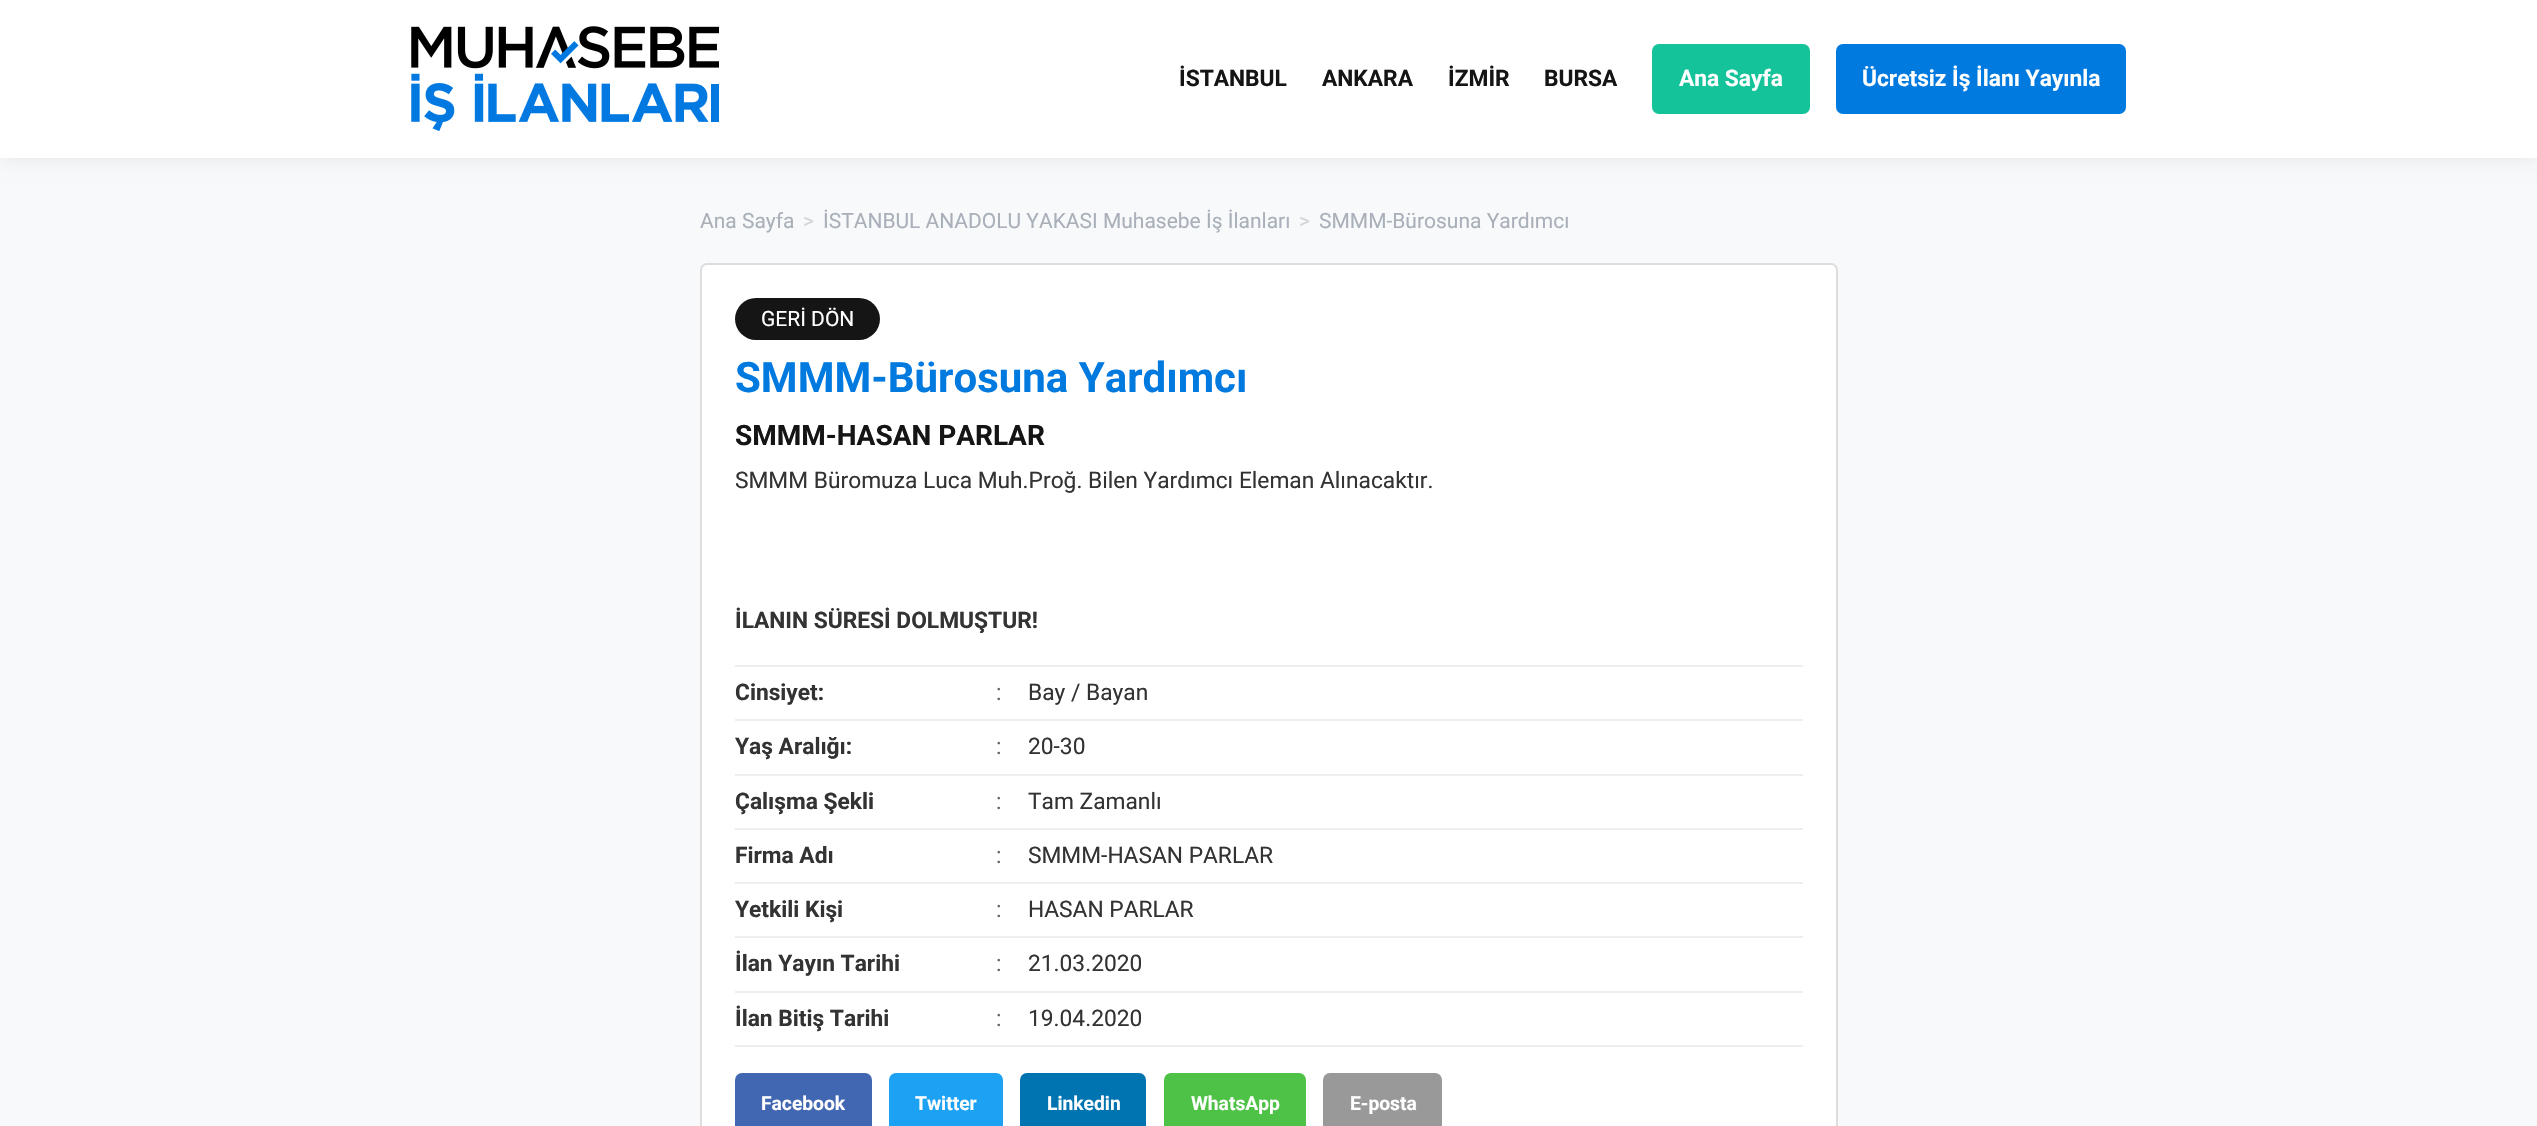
void draw(SkCanvas* canvas) {
    SkPaint paint;
    paint.setAntiAlias(true);
    canvas->clear(0xFFF8F9FA);
    paint.setColor(0x14000000);
    paint.setMaskFilter(SkMaskFilter::MakeBlur(kNormal_SkBlurStyle, 9));
    canvas->drawRect(SkRect::MakeXYWH(0, 0, 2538, 158), paint);
    paint.setMaskFilter(nullptr);
    paint.setColor(0xFFFFFFFF);
    canvas->drawRect(SkRect::MakeXYWH(0, 0, 2537, 158), paint);
    canvas->drawImageRect(SkImages::DeferredFromEncodedData(SkData::MakeFromFileName("img1.png")), SkRect::MakeXYWH(411, 26, 308, 105), SkSamplingOptions());
    SkFont font1(fontMgr->matchFamilyStyle("Roboto", SkFontStyle::Bold()), 22.75f);
    font1.setSubpixel(true);
    paint.setColor(0xFF151515);
    canvas->drawString("İSTANBUL", 1179, 86, font1, paint);
    canvas->drawString("ANKARA", 1322, 86, font1, paint);
    canvas->drawString("İZMİR", 1448, 86, font1, paint);
    canvas->drawString("BURSA", 1544, 86, font1, paint);
    paint.setColor(0xFF15C39A);
    canvas->drawRoundRect(SkRect::MakeXYWH(1652, 44, 158, 70), 7, 7, paint);
    paint.setColor(0xFFFFFFFF);
    canvas->drawString("Ana Sayfa", 1679, 86, font1, paint);
    paint.setColor(0xFF007ADF);
    canvas->drawRoundRect(SkRect::MakeXYWH(1836, 44, 290, 70), 7, 7, paint);
    paint.setColor(0xFFFFFFFF);
    canvas->drawString("Ücretsiz İş İlanı Yayınla", 1862, 86, font1, paint);
    SkFont font2(fontMgr->matchFamilyStyle("Roboto", SkFontStyle::Normal()), 21);
    font2.setSubpixel(true);
    paint.setColor(0xFFA9B0B9);
    canvas->drawString("Ana Sayfa", 700, 228, font2, paint);
    paint.setColor(0xFFD1D5DA);
    canvas->drawString(">", 803, 228, font2, paint);
    paint.setColor(0xFFA9B0B9);
    canvas->drawString("İSTANBUL ANADOLU YAKASI Muhasebe İş İlanları", 823, 228, font2, paint);
    paint.setColor(0xFFD1D5DA);
    canvas->drawString(">", 1299, 228, font2, paint);
    paint.setColor(0xFFA9B0B9);
    canvas->drawString("SMMM-Bürosuna Yardımcı", 1319, 228, font2, paint);
    paint.setColor(0xFFFFFFFF);
    canvas->drawRoundRect(SkRect::MakeXYWH(701, 264, 1136, 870), 6, 6, paint);
    paint.setStyle(SkPaint::kStroke_Style);
    paint.setStrokeWidth(2);
    paint.setColor(0xFFDDDDDD);
    canvas->drawRoundRect(SkRect::MakeXYWH(701, 264, 1136, 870), 6, 6, paint);
    paint.setStyle(SkPaint::kFill_Style);
    paint.setColor(0xFF151515);
    canvas->drawRoundRect(SkRect::MakeXYWH(735, 298, 145, 42), 21, 21, paint);
    paint.setColor(0xFFFFFFFF);
    canvas->drawString("GERİ DÖN", 761, 326, font2, paint);
    SkFont font3(fontMgr->matchFamilyStyle("Roboto", SkFontStyle::Bold()), 42);
    font3.setSubpixel(true);
    paint.setColor(0xFF007ADF);
    canvas->drawString("SMMM-Bürosuna Yardımcı", 735, 392, font3, paint);
    SkFont font4(fontMgr->matchFamilyStyle("Roboto", SkFontStyle::Bold()), 28);
    font4.setSubpixel(true);
    paint.setColor(0xFF151515);
    canvas->drawString("SMMM-HASAN PARLAR", 735, 445, font4, paint);
    SkFont font5(fontMgr->matchFamilyStyle("Roboto", SkFontStyle::Normal()), 22.75f);
    font5.setSubpixel(true);
    paint.setColor(0xFF333333);
    canvas->drawString("SMMM Büromuza Luca Muh.Proğ. Bilen Yardımcı Eleman Alınacaktır.", 735, 488, font5, paint);
    canvas->drawString("İLANIN SÜRESİ DOLMUŞTUR!", 735, 628, font1, paint);
    paint.setColor(0xFFEEEEEE);
    canvas->drawRect(SkRect::MakeXYWH(735, 1045, 1068, 2), paint);
    canvas->drawRect(SkRect::MakeXYWH(735, 665, 1068, 2), paint);
    paint.setColor(0xFF333333);
    canvas->drawString("Cinsiyet:", 735, 700, font1, paint);
    paint.setColor(0xFF666666);
    canvas->drawString(":", 996, 700, font5, paint);
    paint.setColor(0xFF333333);
    canvas->drawString("Bay / Bayan", 1028, 700, font5, paint);
    paint.setColor(0xFFEEEEEE);
    canvas->drawRect(SkRect::MakeXYWH(735, 719, 1068, 2), paint);
    paint.setColor(0xFF333333);
    canvas->drawString("Yaş Aralığı:", 735, 754, font1, paint);
    paint.setColor(0xFF666666);
    canvas->drawString(":", 996, 754, font5, paint);
    paint.setColor(0xFF333333);
    canvas->drawString("20-30", 1028, 754, font5, paint);
    paint.setColor(0xFFEEEEEE);
    canvas->drawRect(SkRect::MakeXYWH(735, 774, 1068, 2), paint);
    paint.setColor(0xFF333333);
    canvas->drawString("Çalışma Şekli", 735, 809, font1, paint);
    paint.setColor(0xFF666666);
    canvas->drawString(":", 996, 809, font5, paint);
    paint.setColor(0xFF333333);
    canvas->drawString("Tam Zamanlı", 1028, 809, font5, paint);
    paint.setColor(0xFFEEEEEE);
    canvas->drawRect(SkRect::MakeXYWH(735, 828, 1068, 2), paint);
    paint.setColor(0xFF333333);
    canvas->drawString("Firma Adı", 735, 863, font1, paint);
    paint.setColor(0xFF666666);
    canvas->drawString(":", 996, 863, font5, paint);
    paint.setColor(0xFF333333);
    canvas->drawString("SMMM-HASAN PARLAR", 1028, 863, font5, paint);
    paint.setColor(0xFFEEEEEE);
    canvas->drawRect(SkRect::MakeXYWH(735, 882, 1068, 2), paint);
    paint.setColor(0xFF333333);
    canvas->drawString("Yetkili Kişi", 735, 917, font1, paint);
    paint.setColor(0xFF666666);
    canvas->drawString(":", 996, 917, font5, paint);
    paint.setColor(0xFF333333);
    canvas->drawString("HASAN PARLAR", 1028, 917, font5, paint);
    paint.setColor(0xFFEEEEEE);
    canvas->drawRect(SkRect::MakeXYWH(735, 936, 1068, 2), paint);
    paint.setColor(0xFF333333);
    canvas->drawString("İlan Yayın Tarihi", 735, 971, font1, paint);
    paint.setColor(0xFF666666);
    canvas->drawString(":", 996, 971, font5, paint);
    paint.setColor(0xFF333333);
    canvas->drawString("21.03.2020", 1028, 971, font5, paint);
    paint.setColor(0xFFEEEEEE);
    canvas->drawRect(SkRect::MakeXYWH(735, 991, 1068, 2), paint);
    paint.setColor(0xFF333333);
    canvas->drawString("İlan Bitiş Tarihi", 735, 1026, font1, paint);
    paint.setColor(0xFF666666);
    canvas->drawString(":", 996, 1026, font5, paint);
    paint.setColor(0xFF333333);
    canvas->drawString("19.04.2020", 1028, 1026, font5, paint);
    paint.setColor(0xFF4267B2);
    canvas->drawRoundRect(SkRect::MakeXYWH(735, 1073, 137, 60), 7, 7, paint);
    SkFont font6(fontMgr->matchFamilyStyle("Roboto", SkFontStyle::Bold()), 19.25f);
    font6.setSubpixel(true);
    paint.setColor(0xFFFFFFFF);
    canvas->drawString("Facebook", 761, 1110, font6, paint);
    paint.setColor(0xFF1DA1F2);
    canvas->drawRoundRect(SkRect::MakeXYWH(889, 1073, 114, 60), 7, 7, paint);
    paint.setColor(0xFFFFFFFF);
    canvas->drawString("Twitter", 915, 1110, font6, paint);
    paint.setColor(0xFF0073B1);
    canvas->drawRoundRect(SkRect::MakeXYWH(1020, 1073, 126, 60), 7, 7, paint);
    paint.setColor(0xFFFFFFFF);
    canvas->drawString("Linkedin", 1047, 1110, font6, paint);
    paint.setColor(0xFF4EC247);
    canvas->drawRoundRect(SkRect::MakeXYWH(1164, 1073, 142, 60), 7, 7, paint);
    paint.setColor(0xFFFFFFFF);
    canvas->drawString("WhatsApp", 1191, 1110, font6, paint);
    paint.setColor(0xFF999999);
    canvas->drawRoundRect(SkRect::MakeXYWH(1323, 1073, 119, 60), 7, 7, paint);
    paint.setColor(0xFFFFFFFF);
    canvas->drawString("E-posta", 1350, 1110, font6, paint);
}
